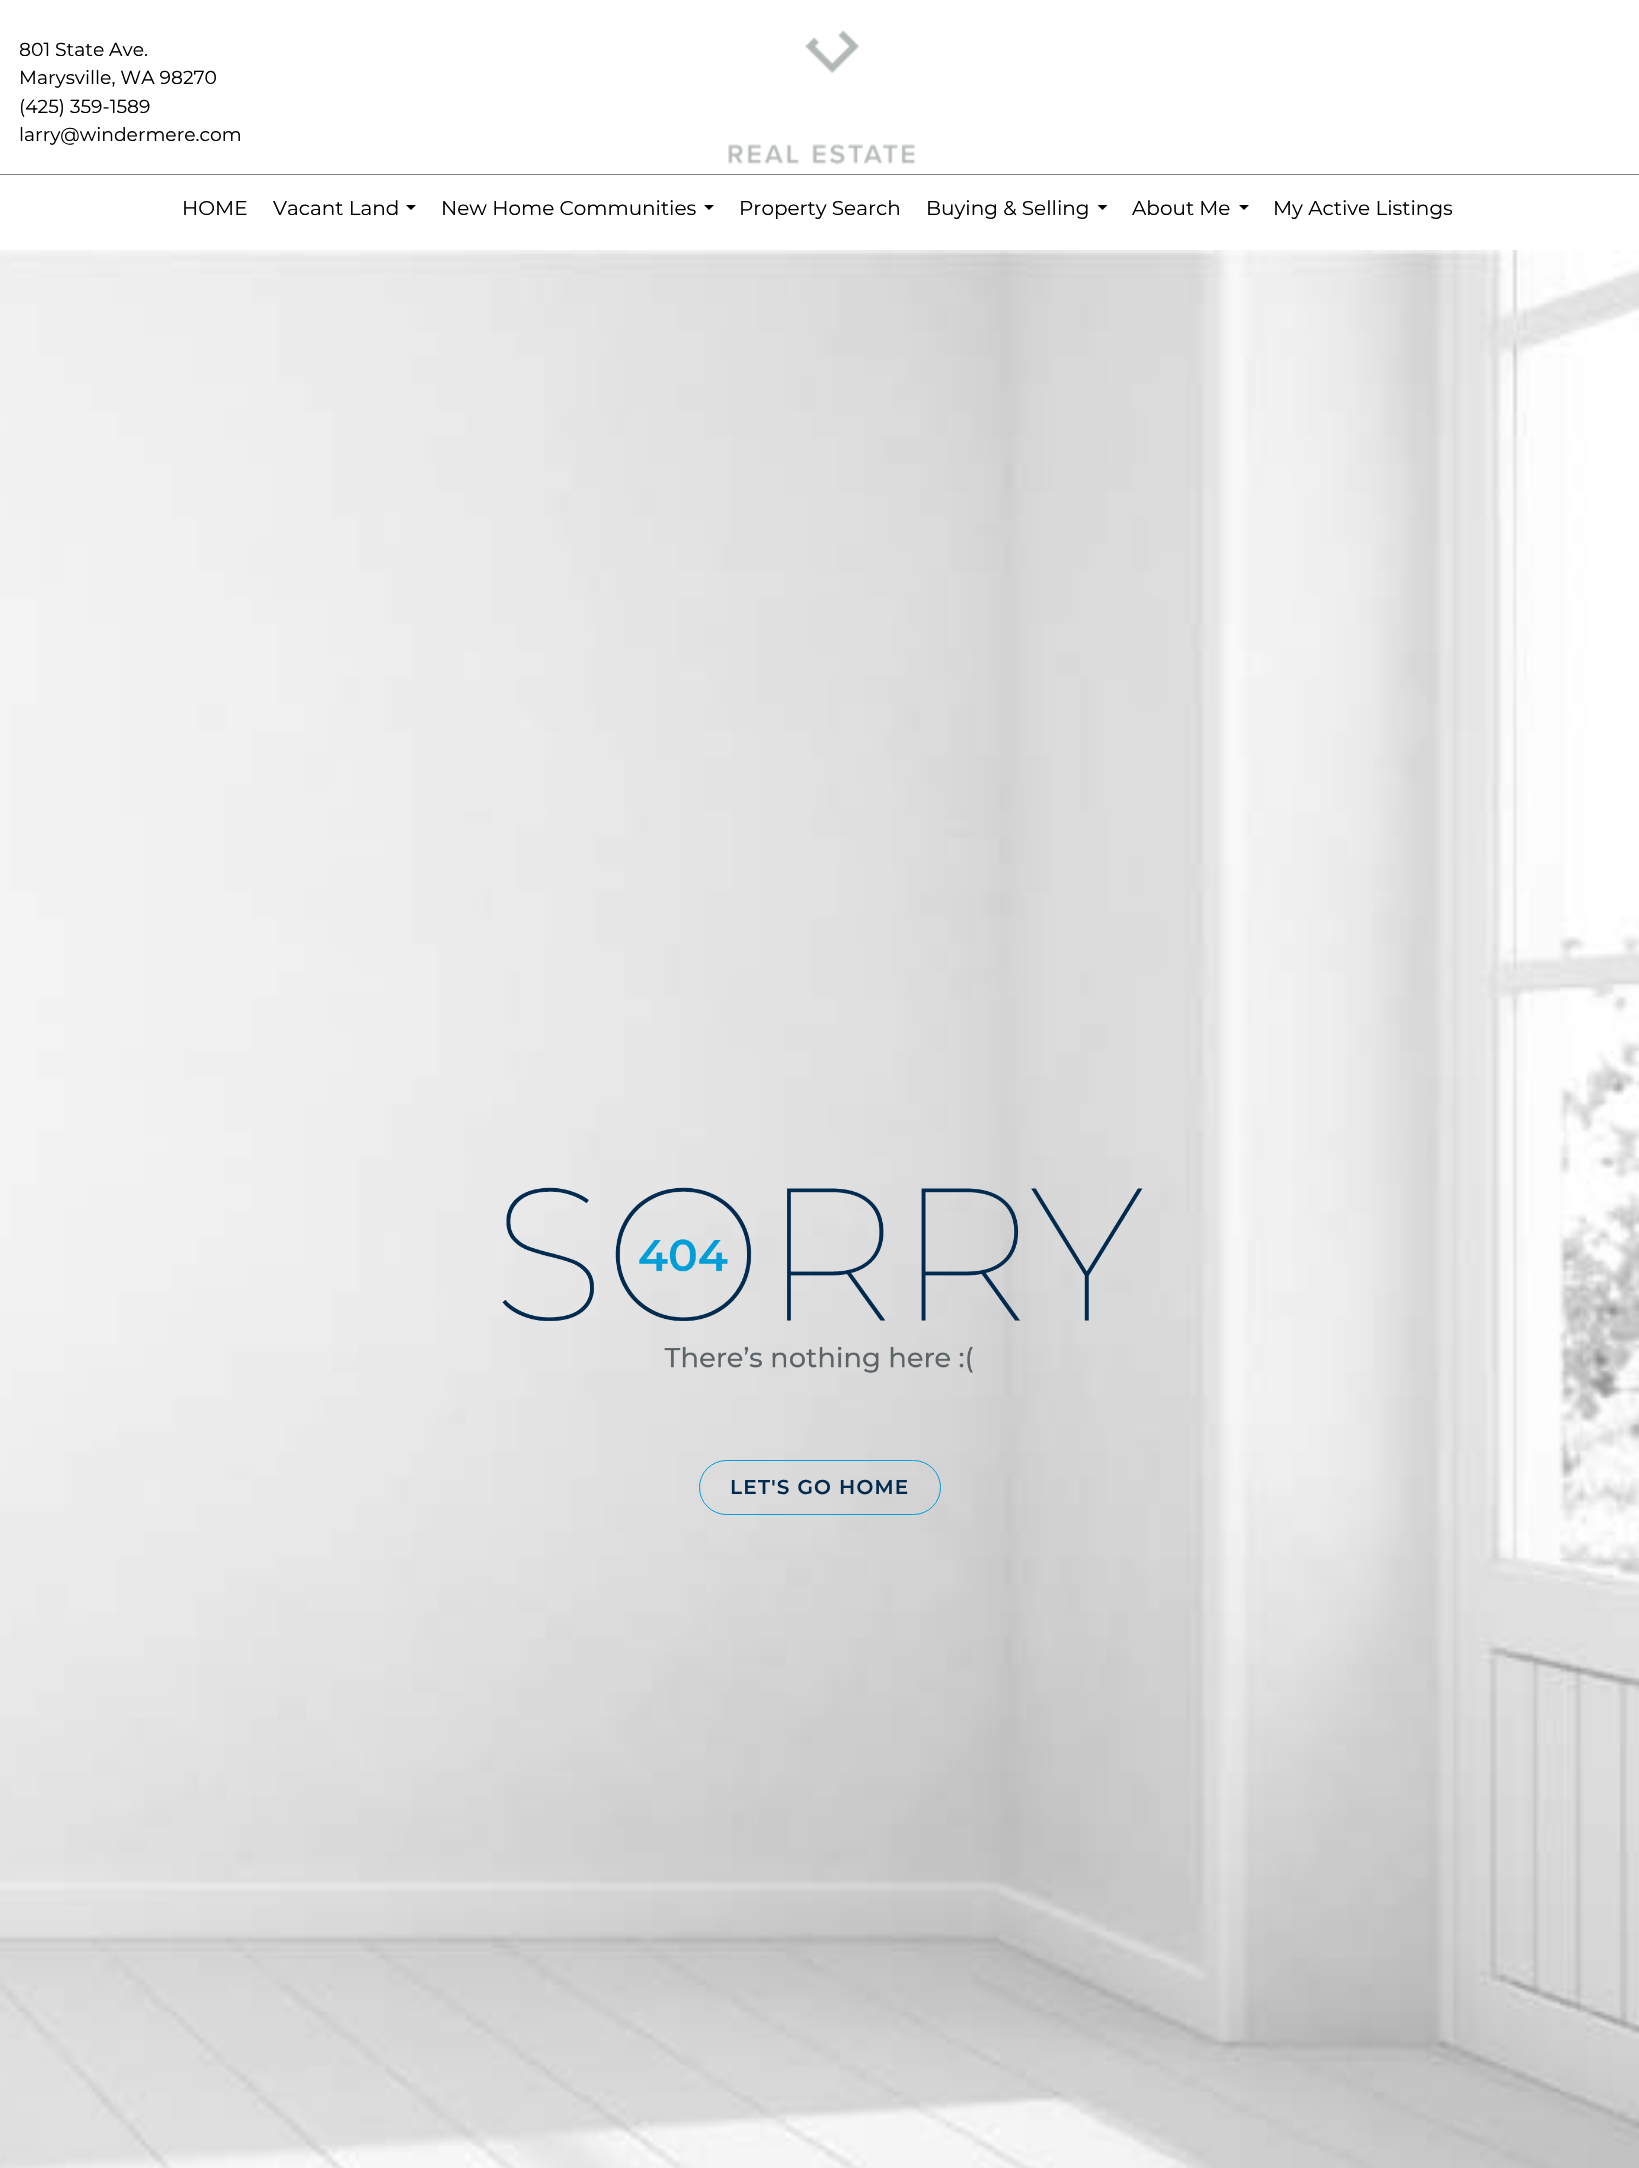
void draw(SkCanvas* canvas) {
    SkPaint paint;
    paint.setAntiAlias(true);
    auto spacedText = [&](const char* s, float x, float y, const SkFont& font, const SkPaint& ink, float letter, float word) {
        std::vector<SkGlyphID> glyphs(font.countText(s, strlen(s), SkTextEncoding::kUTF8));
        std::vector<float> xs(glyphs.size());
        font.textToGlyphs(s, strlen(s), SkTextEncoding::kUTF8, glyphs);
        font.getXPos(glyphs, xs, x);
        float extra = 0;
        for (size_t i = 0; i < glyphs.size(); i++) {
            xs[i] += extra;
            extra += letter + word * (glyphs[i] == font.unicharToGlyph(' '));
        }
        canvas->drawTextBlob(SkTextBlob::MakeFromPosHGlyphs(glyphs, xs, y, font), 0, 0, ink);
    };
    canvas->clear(0xFFFFFFFF);
    paint.setColor(0xFF808080);
    canvas->drawRect(SkRect::MakeXYWH(0, 174, 1639, 1), paint);
    SkFont font1(fontMgr->matchFamilyStyle("Montserrat", SkFontStyle::Normal()), 18.75f);
    font1.setSubpixel(true);
    paint.setColor(0xFF000000);
    canvas->drawString("801 State Ave.", 19, 56, font1, paint);
    canvas->drawString("Marysville, WA 98270", 19, 84, font1, paint);
    canvas->drawString("(425) 359-1589", 19, 113, font1, paint);
    canvas->drawString("larry@windermere.com", 19, 141, font1, paint);
    canvas->drawImageRect(SkImages::DeferredFromEncodedData(SkData::MakeFromFileName("img1.png")), SkRect::MakeXYWH(728, 30, 188, 135), SkSamplingOptions());
    SkFont font2(fontMgr->matchFamilyStyle("Montserrat", SkFontStyle::Normal()), 20);
    font2.setSubpixel(true);
    canvas->drawString("HOME", 182, 215, font2, paint);
    canvas->drawString("Vacant Land", 273, 215, font2, paint);
    canvas->drawPath(SkPathBuilder().moveTo(406, 205).lineTo(416, 205).lineTo(411, 210).close().detach(), paint);
    canvas->drawString("New Home Communities", 441, 215, font2, paint);
    canvas->drawPath(SkPathBuilder().moveTo(704, 205).lineTo(714, 205).lineTo(709, 210).close().detach(), paint);
    canvas->drawString("Property Search", 739, 215, font2, paint);
    canvas->drawString("Buying & Selling", 926, 215, font2, paint);
    canvas->drawPath(SkPathBuilder().moveTo(1097.5f, 205).lineTo(1107.5f, 205).lineTo(1102.5f, 210).close().detach(), paint);
    canvas->drawString("About Me", 1132, 215, font2, paint);
    canvas->drawPath(SkPathBuilder().moveTo(1239, 205).lineTo(1249, 205).lineTo(1244, 210).close().detach(), paint);
    canvas->drawString("My Active Listings", 1273, 215, font2, paint);
    canvas->drawImageRect(SkImages::DeferredFromEncodedData(SkData::MakeFromFileName("img2.png")), SkRect::MakeXYWH(0, 250, 1639, 1918), SkSamplingOptions());
    canvas->drawImageRect(SkImages::DeferredFromEncodedData(SkData::MakeFromFileName("img3.png")), SkRect::MakeXYWH(502, 1187, 641, 186), SkSamplingOptions());
    paint.setStyle(SkPaint::kStroke_Style);
    paint.setStrokeWidth(1);
    paint.setColor(0xFF009CDE);
    canvas->drawRoundRect(SkRect::MakeXYWH(699.5f, 1460.5f, 241, 54), 27, 27, paint);
    SkFont font3(fontMgr->matchFamilyStyle("Montserrat", SkFontStyle(600, SkFontStyle::kNormal_Width, SkFontStyle::kUpright_Slant)), 20);
    font3.setSubpixel(true);
    paint.setStyle(SkPaint::kFill_Style);
    paint.setColor(0xFF002A4E);
    spacedText("LET'S GO HOME", 730, 1494, font3, paint, 1.25f, 0);
}
